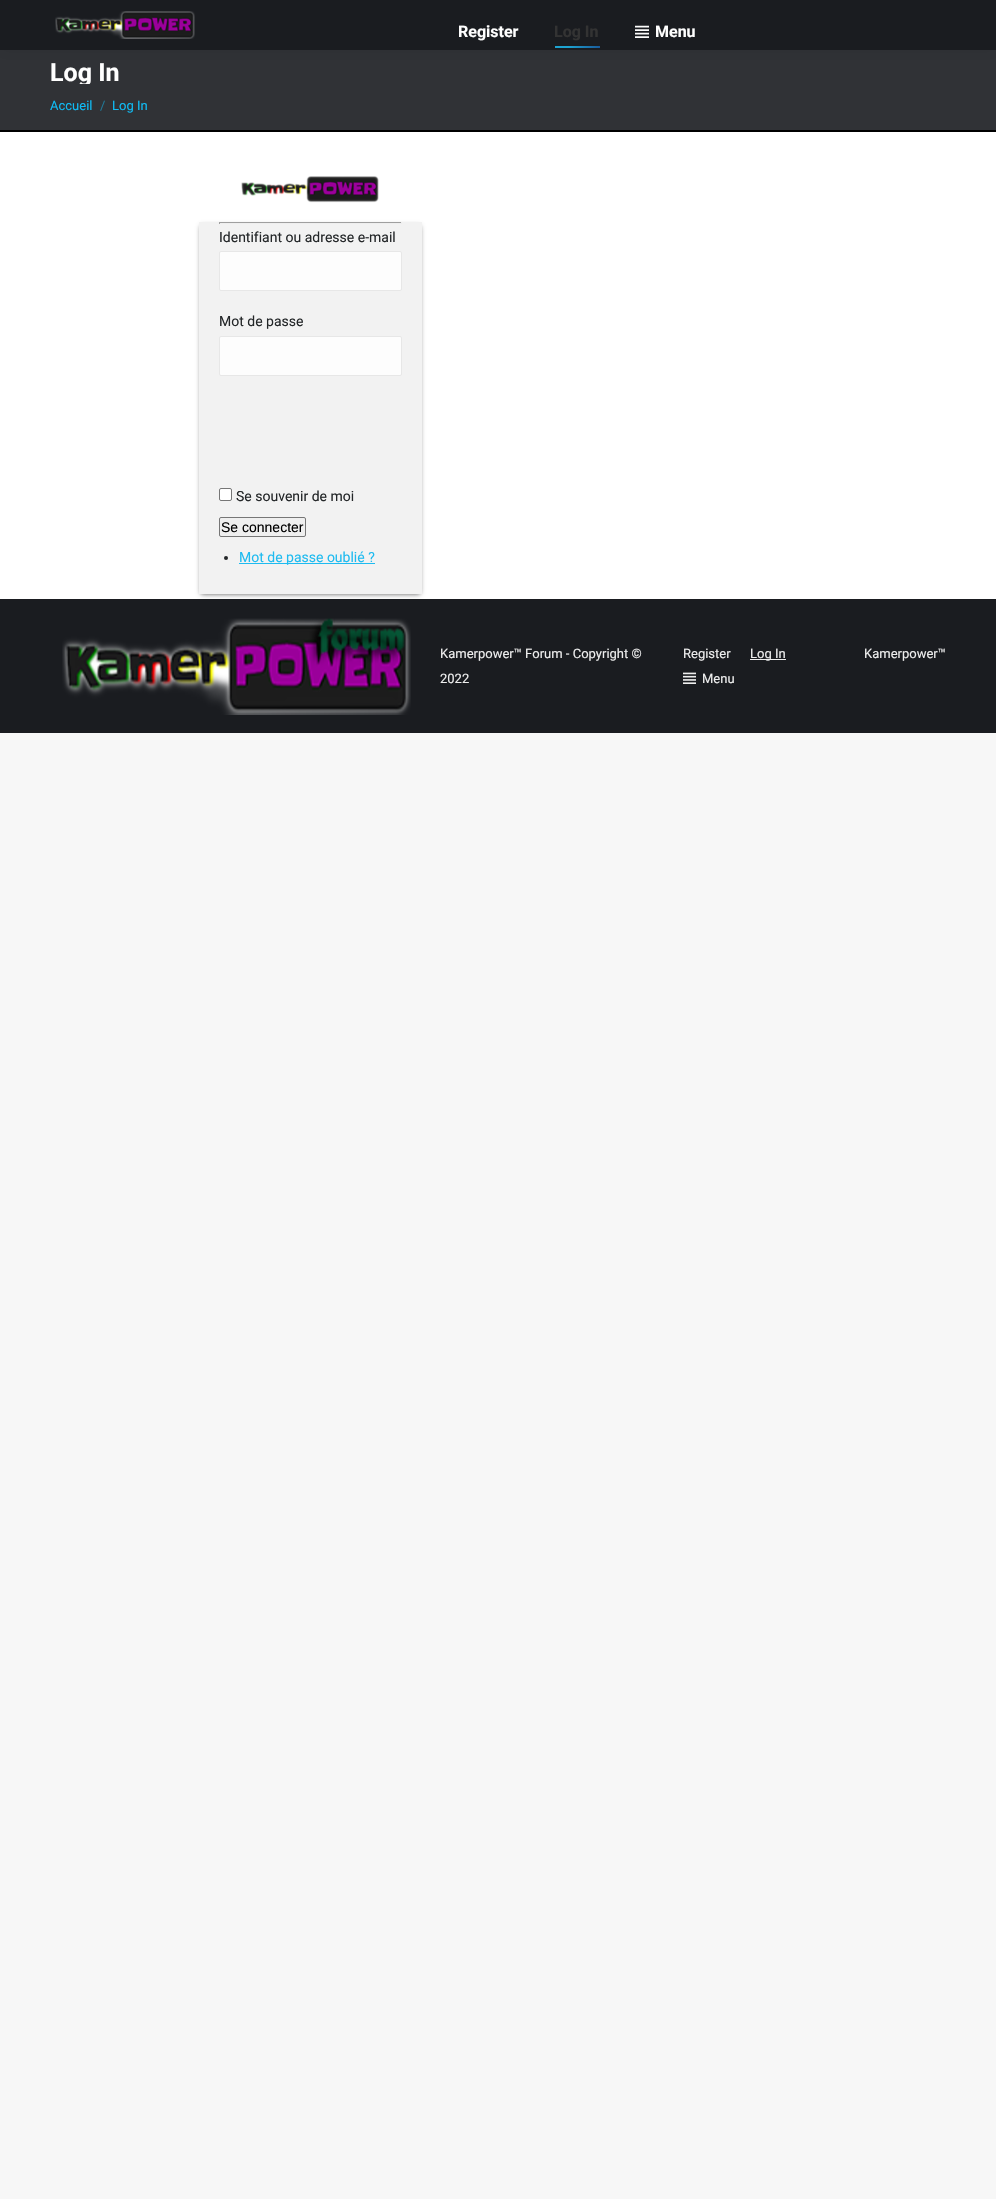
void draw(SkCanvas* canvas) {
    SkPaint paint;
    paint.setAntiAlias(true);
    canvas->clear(0xFFF7F7F7);
    paint.setColor(0xFFFFFFFF);
    canvas->drawRect(SkRect::MakeXYWH(0, 132, 996, 467), paint);
    paint.setColor(0xFF303236);
    canvas->drawRect(SkRect::MakeXYWH(0, 50, 996, 80), paint);
    paint.setColor(0x12000000);
    paint.setMaskFilter(SkMaskFilter::MakeBlur(kNormal_SkBlurStyle, 7.5f));
    canvas->drawRect(SkRect::MakeXYWH(-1, -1, 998, 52), paint);
    paint.setMaskFilter(nullptr);
    paint.setColor(0xFF1A1C20);
    canvas->drawRect(SkRect::MakeXYWH(0, 0, 996, 50), paint);
    canvas->drawImageRect(SkImages::DeferredFromEncodedData(SkData::MakeFromFileName("img1.png")), SkRect::MakeXYWH(55, 11, 140, 28), SkSamplingOptions());
    SkFont font1(fontMgr->matchFamilyStyle("Roboto", SkFontStyle::Bold()), 16);
    font1.setSubpixel(true);
    paint.setColor(0xFFFFFFFF);
    canvas->drawString("Register", 458, 37, font1, paint);
    paint.setColor(0xFF333333);
    canvas->drawString("Log In", 554, 37, font1, paint);
    {
        const SkColor colors[] = {0xFF1DA3D1, 0xFF1A5B9B};
        const float stops[] = {0.3f, 1};
        const SkPoint ends[] = {{555, 47}, {600, 47}};
        paint.setShader(SkGradientShader::MakeLinear(ends, colors, stops, 2, SkTileMode::kClamp));
        paint.setAlpha(255);
    }
    canvas->drawRect(SkRect::MakeXYWH(555, 46, 45, 2), paint);
    canvas->drawImageRect(SkImages::DeferredFromEncodedData(SkData::MakeFromFileName("img2.png")), SkRect::MakeXYWH(635, 25, 14, 13), SkSamplingOptions());
    paint.setShader(nullptr);
    paint.setColor(0xFFFFFFFF);
    canvas->drawString("Menu", 655, 37, font1, paint);
    paint.setColor(0xFF000000);
    canvas->drawRect(SkRect::MakeXYWH(0, 130, 996, 2), paint);
    canvas->save();
    canvas->clipRect(SkRect::MakeXYWH(50, 62, 69, 22));
    SkFont font2(fontMgr->matchFamilyStyle("Roboto", SkFontStyle::Bold()), 25);
    font2.setSubpixel(true);
    paint.setColor(0xFFFFFFFF);
    canvas->drawString("Log In", 50, 81, font2, paint);
    canvas->restore();
    SkFont font3(fontMgr->matchFamilyStyle("Roboto", SkFontStyle::Normal()), 13);
    font3.setSubpixel(true);
    paint.setColor(0xFF0FBCF5);
    canvas->drawString("Accueil", 50, 110, font3, paint);
    paint.setColor(0xFF207796);
    canvas->drawString("/", 100, 110, font3, paint);
    paint.setColor(0xFF0FBCF5);
    canvas->drawString("Log In", 112, 110, font3, paint);
    canvas->drawImageRect(SkImages::DeferredFromEncodedData(SkData::MakeFromFileName("img3.png")), SkRect::MakeXYWH(241, 176, 138, 27), SkSamplingOptions());
    paint.setColor(0xFF1A1C20);
    canvas->drawRect(SkRect::MakeXYWH(0, 599, 996, 134), paint);
    paint.setColor(0xA8000000);
    paint.setMaskFilter(SkMaskFilter::MakeBlur(kNormal_SkBlurStyle, 2.5f));
    canvas->drawRect(SkRect::MakeXYWH(201, 226, 219, 368), paint);
    paint.setMaskFilter(nullptr);
    paint.setColor(0xFFF2F2F2);
    canvas->drawRect(SkRect::MakeXYWH(199, 222, 223, 372), paint);
    paint.setColor(0xFF9F9F9F);
    canvas->drawRect(SkRect::MakeXYWH(219, 222, 183, 1), paint);
    paint.setColor(0xFFEEEEEE);
    canvas->drawRect(SkRect::MakeXYWH(401, 222, 1, 2), paint);
    canvas->drawRect(SkRect::MakeXYWH(219, 223, 183, 1), paint);
    paint.setColor(0xFF9F9F9F);
    canvas->drawRect(SkRect::MakeXYWH(219, 222, 1, 2), paint);
    SkFont font4(fontMgr->matchFamilyStyle("Roboto", SkFontStyle::Normal()), 14);
    font4.setSubpixel(true);
    paint.setColor(0xFF242729);
    canvas->drawString("Identifiant ou adresse e-mail", 219, 242, font4, paint);
    paint.setColor(0xFFFDFDFD);
    canvas->drawRoundRect(SkRect::MakeXYWH(219.5f, 251.5f, 182, 39), 1.5f, 1.5f, paint);
    paint.setStyle(SkPaint::kStroke_Style);
    paint.setStrokeWidth(1);
    paint.setColor(0xFFE7E7E7);
    canvas->drawRoundRect(SkRect::MakeXYWH(219.5f, 251.5f, 182, 39), 1.5f, 1.5f, paint);
    paint.setStyle(SkPaint::kFill_Style);
    paint.setColor(0xFF242729);
    canvas->drawString("Mot de passe", 219, 326, font4, paint);
    paint.setColor(0xFFFDFDFD);
    canvas->drawRoundRect(SkRect::MakeXYWH(219.5f, 336.5f, 182, 39), 1.5f, 1.5f, paint);
    paint.setStyle(SkPaint::kStroke_Style);
    paint.setColor(0xFFE7E7E7);
    canvas->drawRoundRect(SkRect::MakeXYWH(219.5f, 336.5f, 182, 39), 1.5f, 1.5f, paint);
    paint.setStyle(SkPaint::kFill_Style);
    paint.setColor(0xFFFFFFFF);
    canvas->drawRoundRect(SkRect::MakeXYWH(219.5f, 488.5f, 12, 12), 1.5f, 1.5f, paint);
    paint.setStyle(SkPaint::kStroke_Style);
    paint.setColor(0xFF767676);
    canvas->drawRoundRect(SkRect::MakeXYWH(219.5f, 488.5f, 12, 12), 1.5f, 1.5f, paint);
    paint.setStyle(SkPaint::kFill_Style);
    paint.setColor(0xFF242729);
    canvas->drawString("Se souvenir de moi", 236, 501, font4, paint);
    paint.setColor(0xFFEFEFEF);
    canvas->drawRoundRect(SkRect::MakeXYWH(219.5f, 517.5f, 86, 19), 1.5f, 1.5f, paint);
    paint.setStyle(SkPaint::kStroke_Style);
    paint.setColor(0xFF767676);
    canvas->drawRoundRect(SkRect::MakeXYWH(219.5f, 517.5f, 86, 19), 1.5f, 1.5f, paint);
    SkFont font5(fontMgr->matchFamilyStyle("Liberation Sans", SkFontStyle::Normal()), 14);
    font5.setSubpixel(true);
    paint.setStyle(SkPaint::kFill_Style);
    paint.setColor(0xFF000000);
    canvas->drawString("Se connecter", 221, 532, font5, paint);
    paint.setColor(0xFF242729);
    canvas->drawCircle(226, 558, 2, paint);
    paint.setColor(0xFF1EBBF0);
    canvas->drawRect(SkRect::MakeXYWH(239, 563, 136, 1), paint);
    canvas->drawString("Mot de passe oublié ?", 239, 562, font4, paint);
    canvas->drawImageRect(SkImages::DeferredFromEncodedData(SkData::MakeFromFileName("img4.png")), SkRect::MakeXYWH(62, 618, 349, 97), SkSamplingOptions());
    paint.setColor(0xFFEEEEEE);
    canvas->drawString("Kamerpower™ Forum - Copyright ©", 440, 658, font3, paint);
    canvas->drawString("2022", 440, 683, font3, paint);
    canvas->drawString("Register", 683, 658, font3, paint);
    canvas->drawRect(SkRect::MakeXYWH(750, 659, 36, 1), paint);
    canvas->drawString("Log In", 750, 658, font3, paint);
    canvas->drawImageRect(SkImages::DeferredFromEncodedData(SkData::MakeFromFileName("img5.png")), SkRect::MakeXYWH(683, 672, 13, 12), SkSamplingOptions());
    canvas->drawString("Menu", 702, 683, font3, paint);
    canvas->drawString("Kamerpower™", 864, 658, font3, paint);
}
